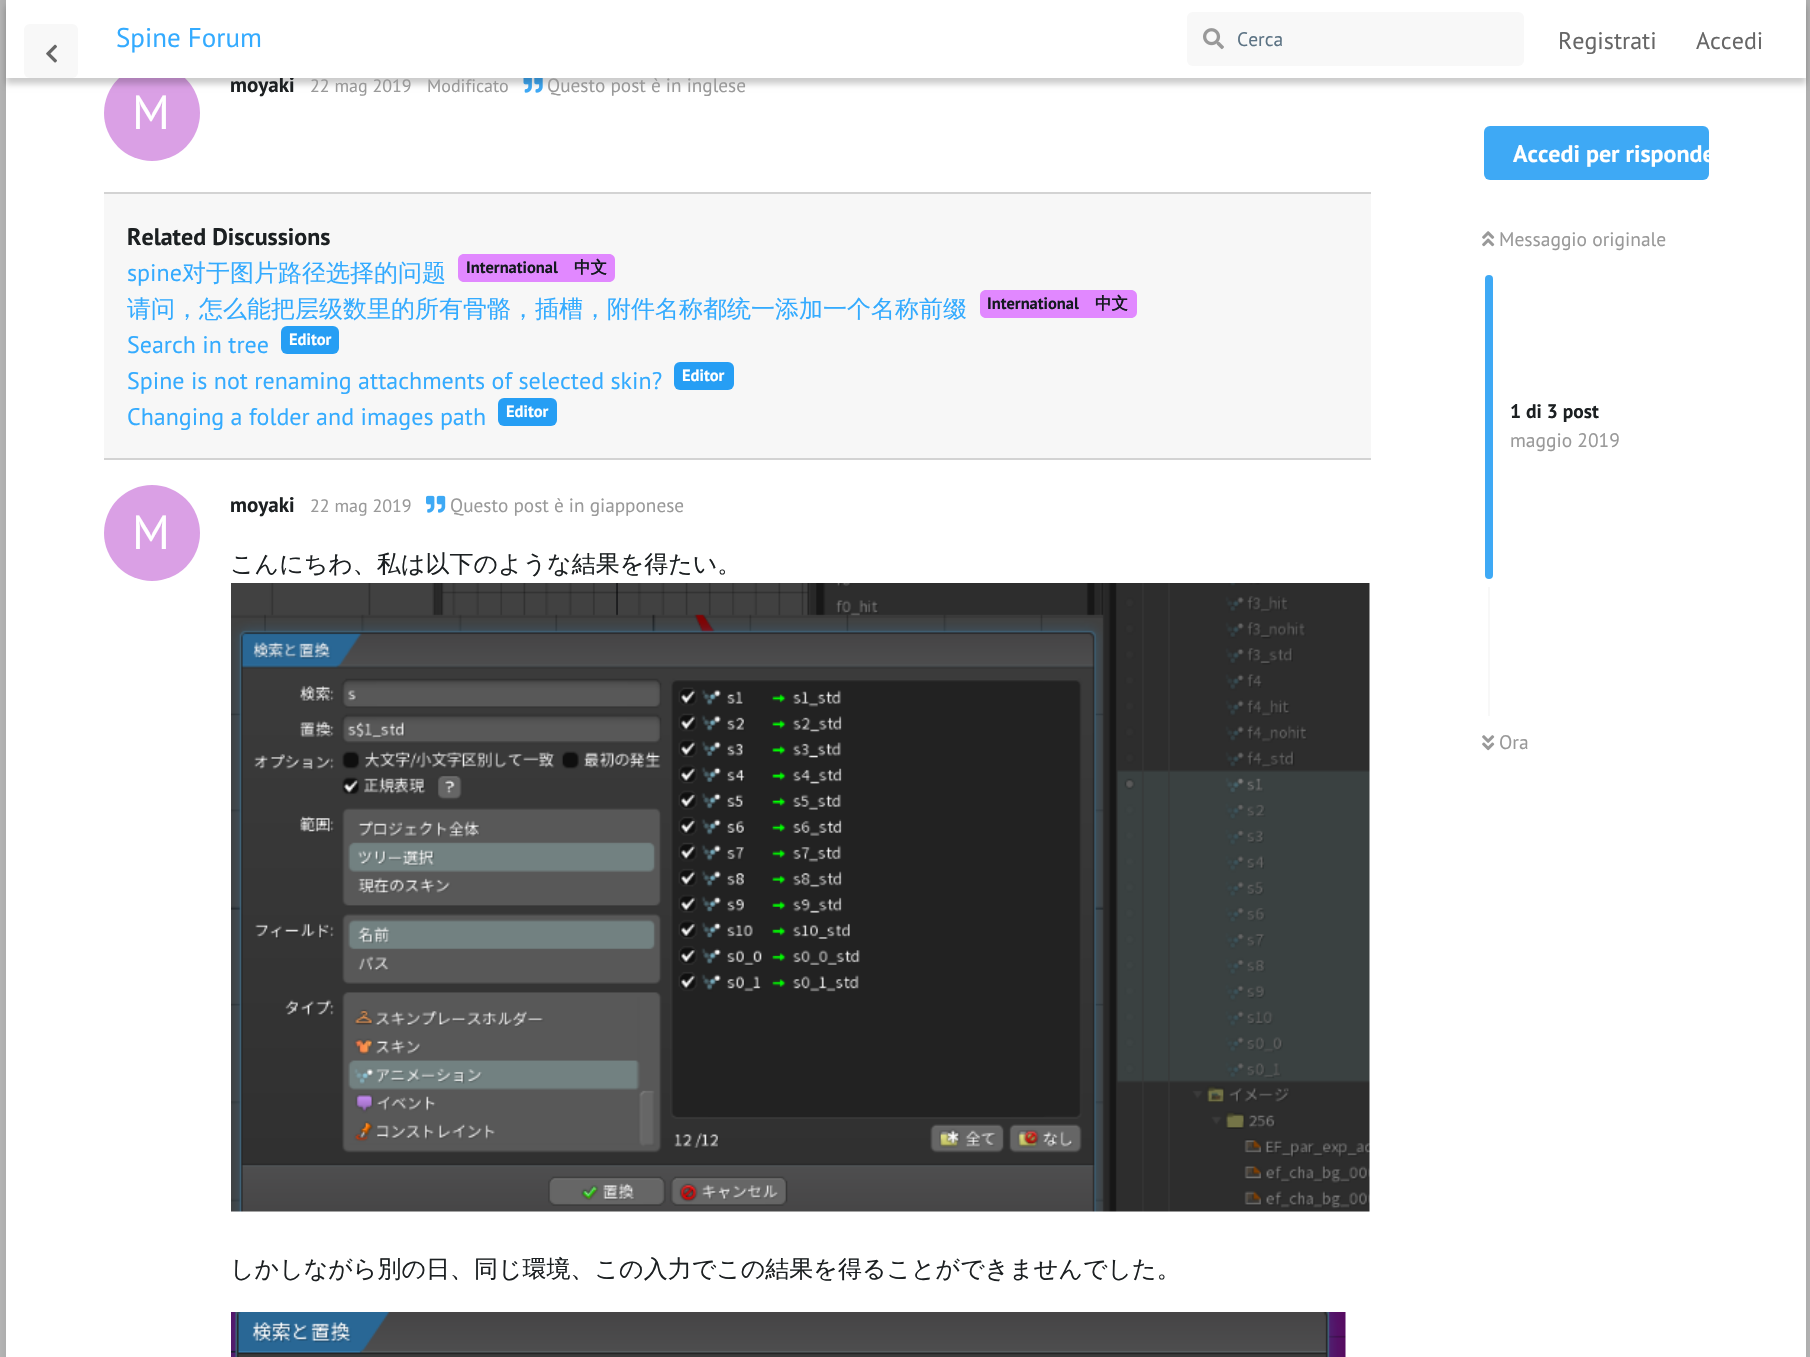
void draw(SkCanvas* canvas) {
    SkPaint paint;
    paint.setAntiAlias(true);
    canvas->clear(0xFFDADADA);
    paint.setColor(0x33000000);
    paint.setMaskFilter(SkMaskFilter::MakeBlur(kNormal_SkBlurStyle, 6));
    canvas->drawRect(SkRect::MakeXYWH(-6, -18, 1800, 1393), paint);
    paint.setMaskFilter(nullptr);
    paint.setMaskFilter(SkMaskFilter::MakeBlur(kNormal_SkBlurStyle, 6));
    canvas->drawRect(SkRect::MakeXYWH(18, -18, 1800, 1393), paint);
    paint.setMaskFilter(nullptr);
    paint.setColor(0xFFFFFFFF);
    canvas->drawRect(SkRect::MakeXYWH(6, 78, 1800, 1279), paint);
    paint.setColor(0xFFDAA0E5);
    canvas->drawCircle(152, 113, 48, paint);
    canvas->drawImageRect(SkImages::DeferredFromEncodedData(SkData::MakeFromFileName("img3.png")), SkRect::MakeXYWH(523, 78, 20, 15), SkSamplingOptions());
    paint.setColor(0x33000000);
    paint.setMaskFilter(SkMaskFilter::MakeBlur(kNormal_SkBlurStyle, 3));
    canvas->drawRect(SkRect::MakeXYWH(6, 6, 1800, 78), paint);
    paint.setMaskFilter(nullptr);
    SkFont font1(fontMgr->matchFamilyStyle("PT Sans", SkFontStyle::Bold()), 21);
    font1.setSubpixel(true);
    paint.setColor(0xFF1C2022);
    canvas->drawString("moyaki", 230, 92, font1, paint);
    paint.setColor(0xFFFFFFFF);
    canvas->drawRect(SkRect::MakeXYWH(6, 0, 1800, 78), paint);
    paint.setColor(0xFFF8F8F8);
    canvas->drawRoundRect(SkRect::MakeXYWH(24, 24, 54, 54), 6, 6, paint);
    canvas->drawImageRect(SkImages::DeferredFromEncodedData(SkData::MakeFromFileName("img1.png")), SkRect::MakeXYWH(46, 44, 11, 19), SkSamplingOptions());
    SkFont font2(fontMgr->matchFamilyStyle("PT Sans", SkFontStyle::Normal()), 27);
    font2.setSubpixel(true);
    paint.setColor(0xFF34ABFF);
    canvas->drawString("Spine Forum", 116, 47, font2, paint);
    paint.setColor(0xFFF8F8F8);
    canvas->drawRoundRect(SkRect::MakeXYWH(1187, 12, 337, 54), 6, 6, paint);
    canvas->drawImageRect(SkImages::DeferredFromEncodedData(SkData::MakeFromFileName("img2.png")), SkRect::MakeXYWH(1203, 28, 21, 22), SkSamplingOptions());
    SkFont font3(fontMgr->matchFamilyStyle("PT Sans", SkFontStyle::Normal()), 19.5f);
    font3.setSubpixel(true);
    paint.setColor(0xFF5C7384);
    canvas->drawString("Cerca", 1237, 46, font3, paint);
    SkFont font4(fontMgr->matchFamilyStyle("PT Sans", SkFontStyle::Normal()), 24);
    font4.setSubpixel(true);
    paint.setColor(0xFF666666);
    canvas->drawString("Registrati", 1558, 49, font4, paint);
    canvas->drawString("Accedi", 1696, 49, font4, paint);
    paint.setColor(0xFFD3D3D3);
    canvas->drawRect(SkRect::MakeXYWH(104, 192, 1267, 2), paint);
    SkFont font5(fontMgr->matchFamilyStyle("PT Sans", SkFontStyle::Normal()), 48);
    font5.setSubpixel(true);
    paint.setColor(0xFFFFFFFF);
    canvas->drawString("M", 132, 129, font5, paint);
    SkFont font6(fontMgr->matchFamilyStyle("PT Sans", SkFontStyle::Normal()), 18);
    font6.setSubpixel(true);
    paint.setColor(0xFF999999);
    canvas->drawString("22 mag 2019", 310, 92, font6, paint);
    canvas->drawString("Modificato", 427, 92, font6, paint);
    SkFont font7(fontMgr->matchFamilyStyle("PT Sans", SkFontStyle::Normal()), 19.25f);
    font7.setSubpixel(true);
    canvas->drawString("Questo post è in inglese", 547, 92, font7, paint);
    paint.setColor(0xFFF7F7F7);
    canvas->drawRect(SkRect::MakeXYWH(104, 194, 1267, 264), paint);
    paint.setColor(0xFFD3D3D3);
    canvas->drawRect(SkRect::MakeXYWH(104, 458, 1267, 2), paint);
    SkFont font8(fontMgr->matchFamilyStyle("PT Sans", SkFontStyle::Bold()), 24);
    font8.setSubpixel(true);
    paint.setColor(0xFF1C2022);
    canvas->drawString("Related Discussions", 127, 245, font8, paint);
    paint.setColor(0xFF34ABFF);
    canvas->drawString("spine", 127, 281, font4, paint);
    SkFont font9(fontMgr->matchFamilyStyle("WenQuanYi Zen Hei", SkFontStyle(500, SkFontStyle::kNormal_Width, SkFontStyle::kUpright_Slant)), 24);
    font9.setSubpixel(true);
    canvas->drawString("对于图片路径选择的问题", 182, 281, font9, paint);
    paint.setColor(0xFFE188FF);
    canvas->drawPath(SkPathBuilder().moveTo(464, 254).lineTo(566, 254).lineTo(566, 282).lineTo(464, 282).cubicTo(460.5f, 282, 458, 279.5f, 458, 276).lineTo(458, 260).cubicTo(458, 256.5f, 460.5f, 254, 464, 254).close().detach(), paint);
    SkFont font10(fontMgr->matchFamilyStyle("PT Sans", SkFontStyle::Bold()), 16.5f);
    font10.setSubpixel(true);
    paint.setColor(0xFF141A1F);
    canvas->drawString("International", 466, 273, font10, paint);
    paint.setColor(0xFFE188FF);
    canvas->drawPath(SkPathBuilder().moveTo(566, 254).lineTo(609, 254).cubicTo(612.5f, 254, 615, 256.5f, 615, 260).lineTo(615, 276).cubicTo(615, 279.5f, 612.5f, 282, 609, 282).lineTo(566, 282).close().detach(), paint);
    SkFont font11(fontMgr->matchFamilyStyle("WenQuanYi Zen Hei", SkFontStyle::Bold()), 16.5f);
    font11.setSubpixel(true);
    paint.setColor(0xFF141A1F);
    canvas->drawString("中文", 574, 273, font11, paint);
    paint.setColor(0xFF34ABFF);
    canvas->drawString("请问，怎么能把层级数里的所有骨骼，插槽，附件名称都统一添加一个名称前缀", 127, 317, font9, paint);
    paint.setColor(0xFFE188FF);
    canvas->drawPath(SkPathBuilder().moveTo(986, 290).lineTo(1088, 290).lineTo(1088, 318).lineTo(986, 318).cubicTo(982.5f, 318, 980, 315.5f, 980, 312).lineTo(980, 296).cubicTo(980, 292.5f, 982.5f, 290, 986, 290).close().detach(), paint);
    paint.setColor(0xFF141A1F);
    canvas->drawString("International", 987, 309, font10, paint);
    paint.setColor(0xFFE188FF);
    canvas->drawPath(SkPathBuilder().moveTo(1088, 290).lineTo(1131, 290).cubicTo(1134.5f, 290, 1137, 292.5f, 1137, 296).lineTo(1137, 312).cubicTo(1137, 315.5f, 1134.5f, 318, 1131, 318).lineTo(1088, 318).close().detach(), paint);
    paint.setColor(0xFF141A1F);
    canvas->drawString("中文", 1095, 309, font11, paint);
    paint.setColor(0xFF34ABFF);
    canvas->drawString("Search in tree", 127, 353, font4, paint);
    paint.setColor(0xFF269EF4);
    canvas->drawRoundRect(SkRect::MakeXYWH(281, 326, 58, 28), 6, 6, paint);
    paint.setColor(0xFFFFFFFF);
    canvas->drawString("Editor", 289, 345, font10, paint);
    paint.setColor(0xFF34ABFF);
    canvas->drawString("Spine is not renaming attachments of selected skin?", 127, 389, font4, paint);
    paint.setColor(0xFF269EF4);
    canvas->drawRoundRect(SkRect::MakeXYWH(674, 362, 60, 28), 6, 6, paint);
    paint.setColor(0xFFFFFFFF);
    canvas->drawString("Editor", 682, 381, font10, paint);
    paint.setColor(0xFF34ABFF);
    canvas->drawString("Changing a folder and images path", 127, 425, font4, paint);
    paint.setColor(0xFF269EF4);
    canvas->drawRoundRect(SkRect::MakeXYWH(498, 398, 59, 28), 6, 6, paint);
    paint.setColor(0xFFFFFFFF);
    canvas->drawString("Editor", 506, 417, font10, paint);
    paint.setColor(0xFF1C2022);
    canvas->drawString("moyaki", 230, 512, font1, paint);
    paint.setColor(0xFFDAA0E5);
    canvas->drawCircle(152, 533, 48, paint);
    paint.setColor(0xFFFFFFFF);
    canvas->drawString("M", 132, 549, font5, paint);
    paint.setColor(0xFF999999);
    canvas->drawString("22 mag 2019", 310, 512, font6, paint);
    canvas->drawImageRect(SkImages::DeferredFromEncodedData(SkData::MakeFromFileName("img4.png")), SkRect::MakeXYWH(426, 495, 20, 18), SkSamplingOptions());
    canvas->drawString("Questo post è in giapponese", 450, 512, font7, paint);
    paint.setColor(0xFF1C2022);
    canvas->drawString("こんにちわ、私は以下のような結果を得たい。", 230, 572, font9, paint);
    canvas->drawImageRect(SkImages::DeferredFromEncodedData(SkData::MakeFromFileName("img5.png")), SkRect::MakeXYWH(231, 583, 1139, 629), SkSamplingOptions());
    canvas->drawString("しかしながら別の日、同じ環境、この入力でこの結果を得ることができませんでした。", 230, 1277, font9, paint);
    canvas->drawImageRect(SkImages::DeferredFromEncodedData(SkData::MakeFromFileName("img6.png")), SkRect::MakeXYWH(231, 1312, 1115, 45), SkSamplingOptions());
    paint.setColor(0xFF3EA9F5);
    canvas->drawRoundRect(SkRect::MakeXYWH(1484, 126, 225, 54), 6, 6, paint);
    paint.setColor(0xFFFFFFFF);
    canvas->drawString("Accedi per risponde", 1513, 162, font8, paint);
    canvas->drawImageRect(SkImages::DeferredFromEncodedData(SkData::MakeFromFileName("img7.png")), SkRect::MakeXYWH(1482, 231, 13, 16), SkSamplingOptions());
    paint.setColor(0xFF999999);
    canvas->drawString("Messaggio originale", 1499, 246, font3, paint);
    paint.setColor(0xFF3EA9F5);
    canvas->drawRoundRect(SkRect::MakeXYWH(1485, 275, 8, 304), 4, 4, paint);
    SkFont font12(fontMgr->matchFamilyStyle("PT Sans", SkFontStyle::Bold()), 19.5f);
    font12.setSubpixel(true);
    paint.setColor(0xFF1C2022);
    canvas->drawString("1 di 3 post", 1510, 418, font12, paint);
    paint.setColor(0xFF999999);
    canvas->drawString("maggio 2019", 1510, 447, font3, paint);
    paint.setColor(0xFFF8F8F8);
    canvas->drawRect(SkRect::MakeXYWH(1488, 587, 2, 129), paint);
    canvas->drawImageRect(SkImages::DeferredFromEncodedData(SkData::MakeFromFileName("img8.png")), SkRect::MakeXYWH(1482, 735, 13, 16), SkSamplingOptions());
    paint.setColor(0xFF999999);
    canvas->drawString("Ora", 1499, 749, font3, paint);
}
